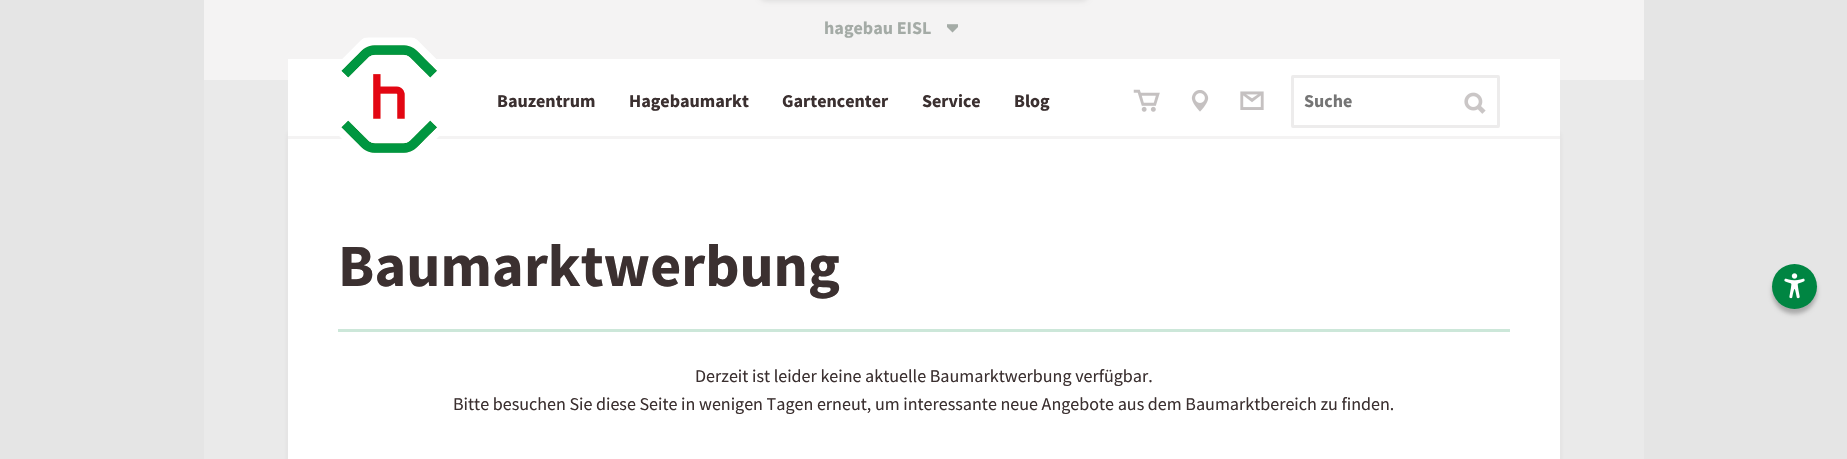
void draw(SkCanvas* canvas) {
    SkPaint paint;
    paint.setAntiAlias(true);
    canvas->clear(0xFFE5E5E5);
    paint.setColor(0xFFF4F3F3);
    canvas->drawRect(SkRect::MakeXYWH(204, 0, 1440, 80), paint);
    paint.setColor(0x1A000000);
    paint.setMaskFilter(SkMaskFilter::MakeBlur(kNormal_SkBlurStyle, 2.5f));
    canvas->drawRoundRect(SkRect::MakeXYWH(759, -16, 330, 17), 8, 8, paint);
    paint.setMaskFilter(nullptr);
    SkFont font1(fontMgr->matchFamilyStyle("Source Sans Pro", SkFontStyle::Bold()), 18);
    font1.setSubpixel(true);
    paint.setColor(0xFFA4ABA6);
    canvas->drawString("hagebau EISL", 824, 34, font1, paint);
    canvas->drawImageRect(SkImages::DeferredFromEncodedData(SkData::MakeFromFileName("img1.png")), SkRect::MakeXYWH(947, 24, 11, 9), SkSamplingOptions());
    paint.setColor(0xFFEAEAEA);
    canvas->drawRect(SkRect::MakeXYWH(204, 80, 1440, 379), paint);
    paint.setColor(0xFFFFFFFF);
    canvas->drawRect(SkRect::MakeXYWH(288, 139, 1272, 320), paint);
    canvas->save();
    canvas->clipPath(SkPathBuilder(SkPathFillType::kEvenOdd).moveTo(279, 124).lineTo(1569, 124).lineTo(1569, 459).lineTo(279, 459).close().moveTo(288, 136).lineTo(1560, 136).lineTo(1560, 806).lineTo(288, 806).close().detach(), true);
    paint.setColor(0x123B3030);
    paint.setMaskFilter(SkMaskFilter::MakeBlur(kNormal_SkBlurStyle, 2.5f));
    canvas->drawRect(SkRect::MakeXYWH(288, 133, 1272, 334), paint);
    paint.setMaskFilter(nullptr);
    canvas->restore();
    paint.setColor(0xFFFFFFFF);
    canvas->drawRect(SkRect::MakeXYWH(288, 59, 1272, 77), paint);
    paint.setColor(0xFFF4F3F3);
    canvas->drawRect(SkRect::MakeXYWH(288, 136, 1272, 3), paint);
    canvas->drawImageRect(SkImages::DeferredFromEncodedData(SkData::MakeFromFileName("img2.png")), SkRect::MakeXYWH(339, 37, 100, 116), SkSamplingOptions());
    paint.setColor(0xFF3B3030);
    canvas->drawString("Bauzentrum", 497, 107, font1, paint);
    canvas->drawString("Hagebaumarkt", 629, 107, font1, paint);
    canvas->drawString("Gartencenter", 782, 107, font1, paint);
    canvas->drawString("Service", 922, 107, font1, paint);
    canvas->drawString("Blog", 1014, 107, font1, paint);
    canvas->drawImageRect(SkImages::DeferredFromEncodedData(SkData::MakeFromFileName("img3.png")), SkRect::MakeXYWH(1133, 89, 27, 23), SkSamplingOptions());
    canvas->drawImageRect(SkImages::DeferredFromEncodedData(SkData::MakeFromFileName("img4.png")), SkRect::MakeXYWH(1191, 90, 18, 22), SkSamplingOptions());
    canvas->drawImageRect(SkImages::DeferredFromEncodedData(SkData::MakeFromFileName("img5.png")), SkRect::MakeXYWH(1240, 91, 24, 19), SkSamplingOptions());
    paint.setStyle(SkPaint::kStroke_Style);
    paint.setStrokeWidth(3);
    paint.setColor(0xFFEDECEC);
    canvas->drawRoundRect(SkRect::MakeXYWH(1292.5f, 76.5f, 206, 50), 0.5f, 0.5f, paint);
    paint.setStyle(SkPaint::kFill_Style);
    paint.setColor(0xFF757575);
    canvas->drawString("Suche", 1304, 107, font1, paint);
    canvas->drawImageRect(SkImages::DeferredFromEncodedData(SkData::MakeFromFileName("img6.png")), SkRect::MakeXYWH(1464, 92, 22, 22), SkSamplingOptions());
    SkFont font2(fontMgr->matchFamilyStyle("Source Sans Pro", SkFontStyle::Bold()), 60);
    font2.setSubpixel(true);
    paint.setColor(0xFF3B3030);
    canvas->drawString("Baumarktwerbung", 338, 286, font2, paint);
    paint.setColor(0xFFCCE7D9);
    canvas->drawRect(SkRect::MakeXYWH(338, 329, 1172, 3), paint);
    SkFont font3(fontMgr->matchFamilyStyle("Source Sans Pro", SkFontStyle::Normal()), 18);
    font3.setSubpixel(true);
    paint.setColor(0xFF3B3030);
    canvas->drawString("Derzeit ist leider keine aktuelle Baumarktwerbung verfügbar.", 695, 382, font3, paint);
    canvas->drawString("Bitte besuchen Sie diese Seite in wenigen Tagen erneut, um interessante neue Angebote aus dem Baumarktbereich zu finden.", 453, 410, font3, paint);
    paint.setColor(0x42000000);
    paint.setMaskFilter(SkMaskFilter::MakeBlur(kNormal_SkBlurStyle, 2));
    canvas->drawRoundRect(SkRect::MakeXYWH(1772, 269, 45, 45), 22.5f, 22.5f, paint);
    paint.setMaskFilter(nullptr);
    paint.setColor(0xFF008542);
    canvas->drawCircle(1794.5f, 286.5f, 22.5f, paint);
    canvas->drawImageRect(SkImages::DeferredFromEncodedData(SkData::MakeFromFileName("img7.png")), SkRect::MakeXYWH(1784, 273, 21, 26), SkSamplingOptions());
}
